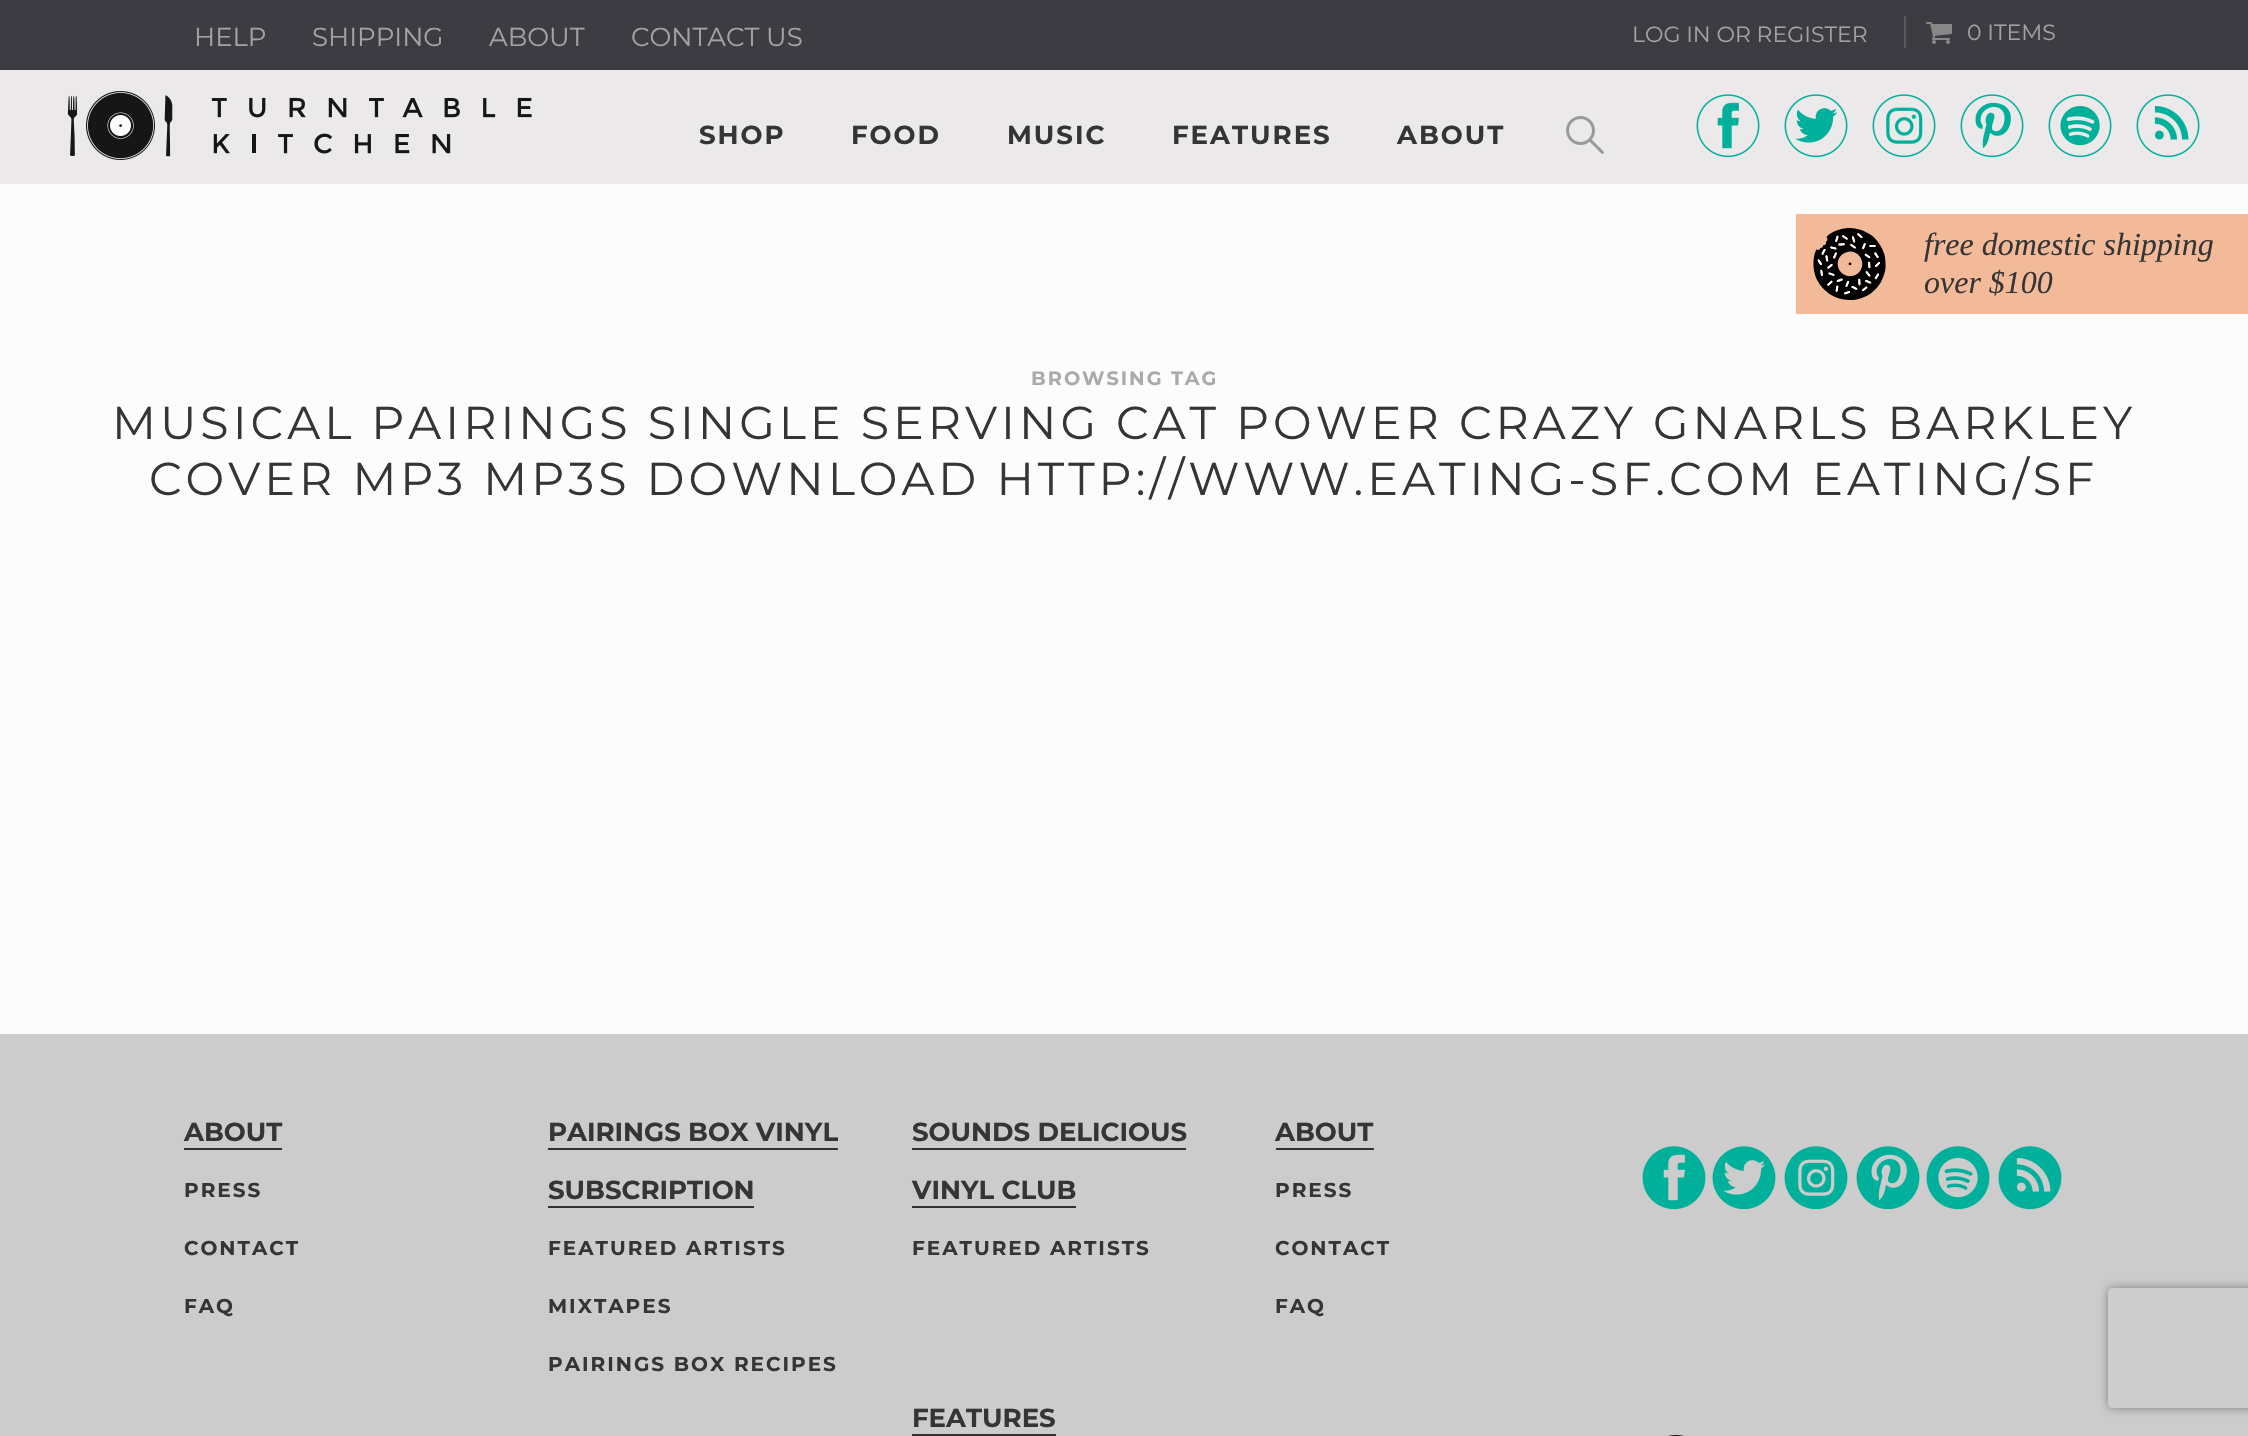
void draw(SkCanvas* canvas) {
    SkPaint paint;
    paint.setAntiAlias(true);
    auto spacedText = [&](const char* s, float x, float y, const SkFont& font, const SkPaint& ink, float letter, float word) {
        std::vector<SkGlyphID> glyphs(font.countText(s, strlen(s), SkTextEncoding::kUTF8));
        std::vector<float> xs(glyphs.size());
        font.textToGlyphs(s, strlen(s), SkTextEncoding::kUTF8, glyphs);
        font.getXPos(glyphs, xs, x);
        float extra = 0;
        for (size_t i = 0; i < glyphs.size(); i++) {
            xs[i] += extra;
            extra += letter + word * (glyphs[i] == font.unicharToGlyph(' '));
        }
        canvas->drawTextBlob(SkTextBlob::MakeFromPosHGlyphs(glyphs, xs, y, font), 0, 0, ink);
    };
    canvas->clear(0xFFFCFCFC);
    paint.setColor(0xFF3C3C42);
    canvas->drawRect(SkRect::MakeXYWH(0, 0, 2248, 70), paint);
    SkFont font1(fontMgr->matchFamilyStyle("Montserrat", SkFontStyle::Normal()), 26);
    font1.setSubpixel(true);
    paint.setColor(0xFFA3A3A3);
    canvas->drawString("HELP", 194, 46, font1, paint);
    canvas->drawString("SHIPPING", 312, 46, font1, paint);
    canvas->drawString("ABOUT", 489, 46, font1, paint);
    canvas->drawString("CONTACT US", 631, 46, font1, paint);
    SkFont font2(fontMgr->matchFamilyStyle("Montserrat", SkFontStyle::Normal()), 22);
    font2.setSubpixel(true);
    canvas->drawString("LOG IN OR REGISTER", 1632, 42, font2, paint);
    paint.setColor(0xFF595959);
    canvas->drawRect(SkRect::MakeXYWH(1904, 16, 2, 32), paint);
    canvas->drawImageRect(SkImages::DeferredFromEncodedData(SkData::MakeFromFileName("img1.png")), SkRect::MakeXYWH(1926, 22, 26, 22), SkSamplingOptions());
    paint.setColor(0xFFA3A3A3);
    canvas->drawString("0 ITEMS", 1967, 40, font2, paint);
    paint.setColor(0xFFEBE9E9);
    canvas->drawRect(SkRect::MakeXYWH(0, 70, 2248, 114), paint);
    canvas->drawImageRect(SkImages::DeferredFromEncodedData(SkData::MakeFromFileName("img2.png")), SkRect::MakeXYWH(67, 91, 465, 69), SkSamplingOptions());
    SkFont font3(fontMgr->matchFamilyStyle("Montserrat", SkFontStyle::Bold()), 26);
    font3.setSubpixel(true);
    paint.setColor(0xFF353535);
    spacedText("SHOP", 699, 144, font3, paint, 2, 0);
    spacedText("FOOD", 851, 144, font3, paint, 2, 0);
    spacedText("MUSIC", 1007, 144, font3, paint, 2, 0);
    spacedText("FEATURES", 1172, 144, font3, paint, 2, 0);
    spacedText("ABOUT", 1397, 144, font3, paint, 2, 0);
    canvas->drawImageRect(SkImages::DeferredFromEncodedData(SkData::MakeFromFileName("img3.png")), SkRect::MakeXYWH(1566, 116, 38, 38), SkSamplingOptions());
    canvas->drawImageRect(SkImages::DeferredFromEncodedData(SkData::MakeFromFileName("img4.png")), SkRect::MakeXYWH(1696, 94, 64, 64), SkSamplingOptions());
    canvas->drawImageRect(SkImages::DeferredFromEncodedData(SkData::MakeFromFileName("img5.png")), SkRect::MakeXYWH(1784, 94, 64, 64), SkSamplingOptions());
    canvas->drawImageRect(SkImages::DeferredFromEncodedData(SkData::MakeFromFileName("img6.png")), SkRect::MakeXYWH(1872, 94, 64, 64), SkSamplingOptions());
    canvas->drawImageRect(SkImages::DeferredFromEncodedData(SkData::MakeFromFileName("img7.png")), SkRect::MakeXYWH(1960, 94, 64, 64), SkSamplingOptions());
    canvas->drawImageRect(SkImages::DeferredFromEncodedData(SkData::MakeFromFileName("img8.png")), SkRect::MakeXYWH(2048, 94, 64, 64), SkSamplingOptions());
    canvas->drawImageRect(SkImages::DeferredFromEncodedData(SkData::MakeFromFileName("img9.png")), SkRect::MakeXYWH(2136, 94, 64, 64), SkSamplingOptions());
    paint.setColor(0xFFF3BA9A);
    canvas->drawRect(SkRect::MakeXYWH(1796, 214, 452, 100), paint);
    canvas->drawImageRect(SkImages::DeferredFromEncodedData(SkData::MakeFromFileName("img10.png")), SkRect::MakeXYWH(1812, 228, 74, 72), SkSamplingOptions());
    SkFont font4(fontMgr->matchFamilyStyle("Liberation Serif", SkFontStyle::Italic()), 32);
    font4.setSubpixel(true);
    paint.setColor(0xFF353535);
    canvas->drawString("free domestic shipping", 1924, 255, font4, paint);
    canvas->drawString("over $100", 1924, 293, font4, paint);
    SkFont font5(fontMgr->matchFamilyStyle("Montserrat", SkFontStyle::Bold()), 19.25f);
    font5.setSubpixel(true);
    paint.setColor(0xFFAAAAAA);
    spacedText("BROWSING TAG", 1031, 385, font5, paint, 2, 0);
    SkFont font6(fontMgr->matchFamilyStyle("Montserrat", SkFontStyle::Normal()), 46);
    font6.setSubpixel(true);
    paint.setColor(0xFF353535);
    spacedText("MUSICAL PAIRINGS SINGLE SERVING CAT POWER CRAZY GNARLS BARKLEY", 112, 439, font6, paint, 4, 0);
    spacedText("COVER MP3 MP3S DOWNLOAD HTTP://WWW.EATING-SF.COM EATING/SF", 149, 495, font6, paint, 4, 0);
    paint.setColor(0xFFCCCCCC);
    canvas->drawRect(SkRect::MakeXYWH(0, 1034, 2248, 402), paint);
    paint.setColor(0xFF353535);
    canvas->drawString("ABOUT", 184, 1141, font3, paint);
    paint.setColor(0xFF333333);
    canvas->drawRect(SkRect::MakeXYWH(184, 1148, 98, 2), paint);
    SkFont font7(fontMgr->matchFamilyStyle("Montserrat", SkFontStyle::Bold()), 20);
    font7.setSubpixel(true);
    paint.setColor(0xFF353535);
    spacedText("PRESS", 184, 1197, font7, paint, 2, 0);
    spacedText("CONTACT", 184, 1255, font7, paint, 2, 0);
    spacedText("FAQ", 184, 1313, font7, paint, 2, 0);
    canvas->drawString("PAIRINGS BOX VINYL", 548, 1141, font3, paint);
    paint.setColor(0xFF333333);
    canvas->drawRect(SkRect::MakeXYWH(548, 1148, 290, 2), paint);
    paint.setColor(0xFF353535);
    canvas->drawString("SUBSCRIPTION", 548, 1199, font3, paint);
    paint.setColor(0xFF333333);
    canvas->drawRect(SkRect::MakeXYWH(548, 1206, 206, 2), paint);
    paint.setColor(0xFF353535);
    spacedText("FEATURED ARTISTS", 548, 1255, font7, paint, 2, 0);
    spacedText("MIXTAPES", 548, 1313, font7, paint, 2, 0);
    spacedText("PAIRINGS BOX RECIPES", 548, 1371, font7, paint, 2, 0);
    canvas->drawString("SOUNDS DELICIOUS", 912, 1141, font3, paint);
    paint.setColor(0xFF333333);
    canvas->drawRect(SkRect::MakeXYWH(912, 1148, 274, 2), paint);
    paint.setColor(0xFF353535);
    canvas->drawString("VINYL CLUB", 912, 1199, font3, paint);
    paint.setColor(0xFF333333);
    canvas->drawRect(SkRect::MakeXYWH(912, 1206, 164, 2), paint);
    paint.setColor(0xFF353535);
    spacedText("FEATURED ARTISTS", 912, 1255, font7, paint, 2, 0);
    canvas->drawString("FEATURES", 912, 1427, font3, paint);
    paint.setColor(0xFF333333);
    canvas->drawRect(SkRect::MakeXYWH(912, 1434, 144, 2), paint);
    paint.setColor(0xFF353535);
    canvas->drawString("ABOUT", 1275, 1141, font3, paint);
    paint.setColor(0xFF333333);
    canvas->drawRect(SkRect::MakeXYWH(1276, 1148, 98, 2), paint);
    paint.setColor(0xFF353535);
    spacedText("PRESS", 1275, 1197, font7, paint, 2, 0);
    spacedText("CONTACT", 1275, 1255, font7, paint, 2, 0);
    spacedText("FAQ", 1275, 1313, font7, paint, 2, 0);
    canvas->drawImageRect(SkImages::DeferredFromEncodedData(SkData::MakeFromFileName("img11.png")), SkRect::MakeXYWH(1642, 1146, 64, 64), SkSamplingOptions());
    canvas->drawImageRect(SkImages::DeferredFromEncodedData(SkData::MakeFromFileName("img12.png")), SkRect::MakeXYWH(1712, 1146, 64, 64), SkSamplingOptions());
    canvas->drawImageRect(SkImages::DeferredFromEncodedData(SkData::MakeFromFileName("img13.png")), SkRect::MakeXYWH(1784, 1146, 64, 64), SkSamplingOptions());
    canvas->drawImageRect(SkImages::DeferredFromEncodedData(SkData::MakeFromFileName("img14.png")), SkRect::MakeXYWH(1856, 1146, 64, 64), SkSamplingOptions());
    canvas->drawImageRect(SkImages::DeferredFromEncodedData(SkData::MakeFromFileName("img15.png")), SkRect::MakeXYWH(1926, 1146, 64, 64), SkSamplingOptions());
    canvas->drawImageRect(SkImages::DeferredFromEncodedData(SkData::MakeFromFileName("img16.png")), SkRect::MakeXYWH(1998, 1146, 64, 64), SkSamplingOptions());
    canvas->drawImageRect(SkImages::DeferredFromEncodedData(SkData::MakeFromFileName("img17.png")), SkRect::MakeXYWH(1668, 1435, 16, 1), SkSamplingOptions());
    canvas->save();
    canvas->clipPath(SkPathBuilder(SkPathFillType::kEvenOdd).moveTo(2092, 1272).lineTo(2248, 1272).lineTo(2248, 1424).lineTo(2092, 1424).close().moveTo(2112, 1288).lineTo(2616, 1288).cubicTo(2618, 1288, 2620, 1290, 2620, 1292).lineTo(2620, 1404).cubicTo(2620, 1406, 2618, 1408, 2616, 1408).lineTo(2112, 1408).cubicTo(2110, 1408, 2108, 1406, 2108, 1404).lineTo(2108, 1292).cubicTo(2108, 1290, 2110, 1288, 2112, 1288).close().detach(), true);
    paint.setColor(0xFF808080);
    paint.setMaskFilter(SkMaskFilter::MakeBlur(kNormal_SkBlurStyle, 5));
    canvas->drawRoundRect(SkRect::MakeXYWH(2108, 1288, 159, 120), 4, 4, paint);
    paint.setMaskFilter(nullptr);
    canvas->restore();
}
